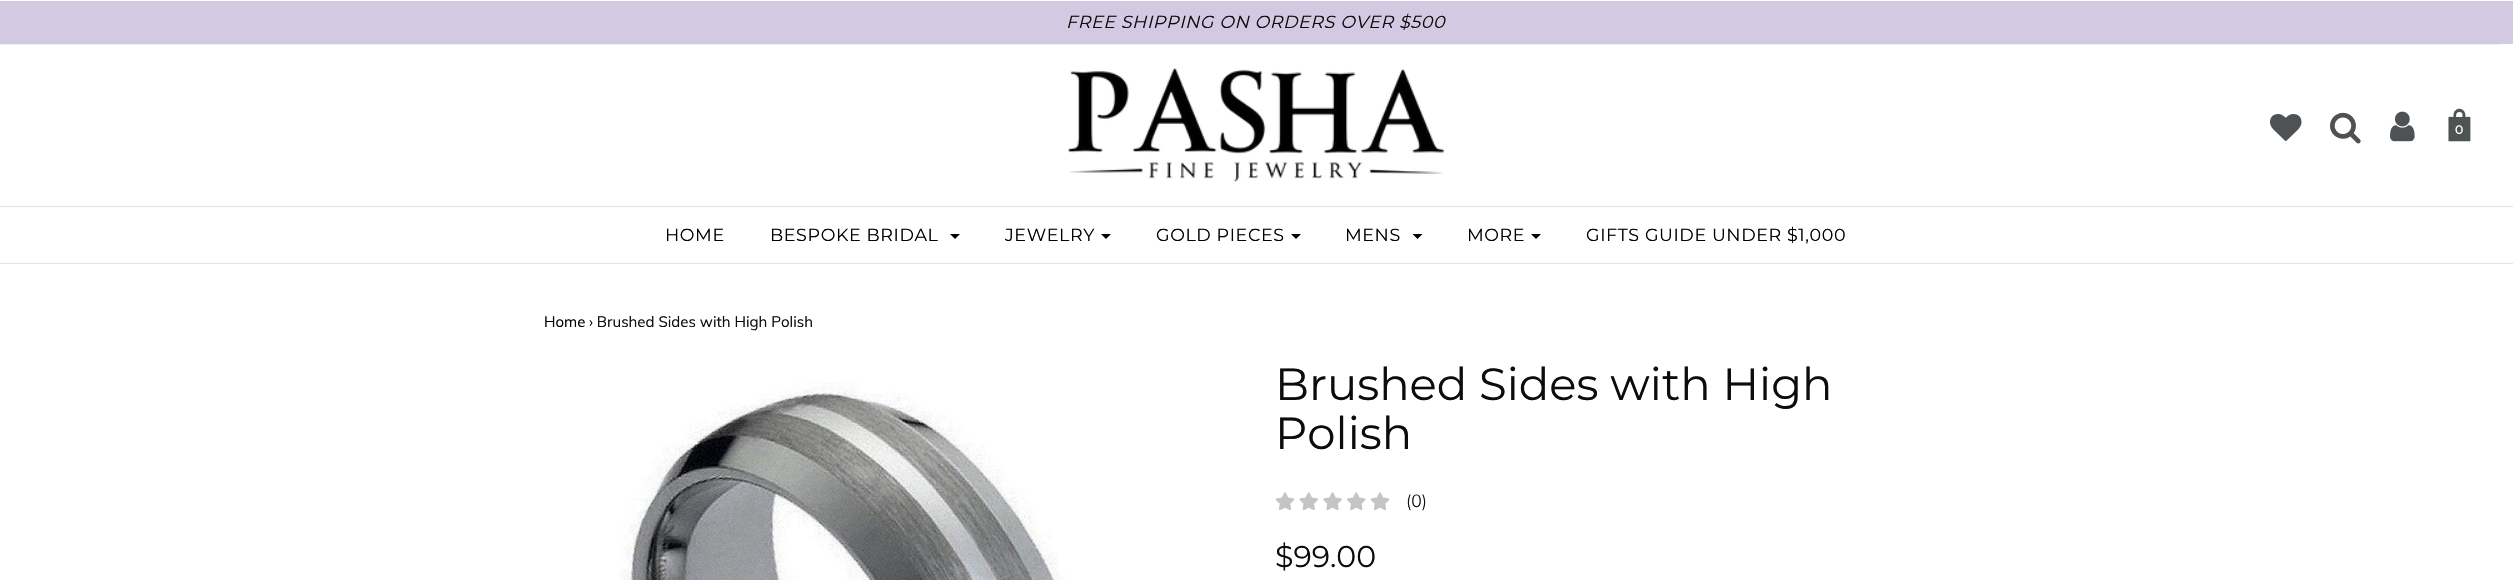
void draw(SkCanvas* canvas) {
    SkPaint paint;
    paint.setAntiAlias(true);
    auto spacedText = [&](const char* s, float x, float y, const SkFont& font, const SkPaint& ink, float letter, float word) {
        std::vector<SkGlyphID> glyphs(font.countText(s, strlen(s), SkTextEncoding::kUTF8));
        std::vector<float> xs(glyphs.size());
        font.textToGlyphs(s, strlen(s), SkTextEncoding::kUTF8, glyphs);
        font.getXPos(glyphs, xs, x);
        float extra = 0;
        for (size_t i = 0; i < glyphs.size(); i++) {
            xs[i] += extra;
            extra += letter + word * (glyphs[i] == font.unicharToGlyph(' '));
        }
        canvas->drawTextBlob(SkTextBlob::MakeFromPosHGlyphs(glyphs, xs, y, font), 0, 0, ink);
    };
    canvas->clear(0xFFFFFFFF);
    paint.setColor(0xFFD4C9E2);
    canvas->drawRect(SkRect::MakeXYWH(0, 1, 2513, 43), paint);
    SkFont font1(fontMgr->matchFamilyStyle("Montserrat", SkFontStyle(100, SkFontStyle::kNormal_Width, SkFontStyle::kItalic_Slant)), 17.5f);
    font1.setSubpixel(true);
    paint.setColor(0xFF0D0C0D);
    spacedText("FREE SHIPPING ON ORDERS OVER $500", 1066, 28, font1, paint, 0.6f, 0);
    paint.setColor(0xFFEEEEEE);
    canvas->drawRect(SkRect::MakeXYWH(0, 44, 2500, 1), paint);
    canvas->drawImageRect(SkImages::DeferredFromEncodedData(SkData::MakeFromFileName("img1.png")), SkRect::MakeXYWH(1068, 68, 376, 114), SkSamplingOptions());
    canvas->drawImageRect(SkImages::DeferredFromEncodedData(SkData::MakeFromFileName("img2.png")), SkRect::MakeXYWH(2270, 114, 32, 27), SkSamplingOptions());
    canvas->drawImageRect(SkImages::DeferredFromEncodedData(SkData::MakeFromFileName("img3.png")), SkRect::MakeXYWH(2330, 112, 31, 32), SkSamplingOptions());
    canvas->drawImageRect(SkImages::DeferredFromEncodedData(SkData::MakeFromFileName("img4.png")), SkRect::MakeXYWH(2390, 111, 25, 31), SkSamplingOptions());
    canvas->drawImageRect(SkImages::DeferredFromEncodedData(SkData::MakeFromFileName("img5.png")), SkRect::MakeXYWH(2448, 108, 23, 34), SkSamplingOptions());
    SkFont font2(fontMgr->matchFamilyStyle("Montserrat", SkFontStyle::Bold()), 12);
    font2.setSubpixel(true);
    paint.setColor(0xFFFFFFFF);
    canvas->drawString("0", 2455, 134, font2, paint);
    paint.setColor(0xFFE0E3E4);
    canvas->drawRect(SkRect::MakeXYWH(0, 206, 2513, 1), paint);
    canvas->drawRect(SkRect::MakeXYWH(0, 263, 2513, 1), paint);
    SkFont font3(fontMgr->matchFamilyStyle("Montserrat", SkFontStyle(100, SkFontStyle::kNormal_Width, SkFontStyle::kUpright_Slant)), 17.5f);
    font3.setSubpixel(true);
    paint.setColor(0xFF000000);
    spacedText("HOME", 665, 241, font3, paint, 0.6f, 0);
    spacedText("BESPOKE BRIDAL", 770, 241, font3, paint, 0.6f, 0);
    canvas->drawPath(SkPathBuilder().moveTo(950, 234).lineTo(960, 234).lineTo(955, 239).close().detach(), paint);
    spacedText("JEWELRY", 1005, 241, font3, paint, 0.6f, 0);
    canvas->drawPath(SkPathBuilder().moveTo(1101, 234).lineTo(1111, 234).lineTo(1106, 239).close().detach(), paint);
    spacedText("GOLD PIECES", 1156, 241, font3, paint, 0.6f, 0);
    canvas->drawPath(SkPathBuilder().moveTo(1291, 234).lineTo(1301, 234).lineTo(1296, 239).close().detach(), paint);
    spacedText("MENS", 1345, 241, font3, paint, 0.6f, 0);
    canvas->drawPath(SkPathBuilder().moveTo(1412.5f, 234).lineTo(1422.5f, 234).lineTo(1417.5f, 239).close().detach(), paint);
    spacedText("MORE", 1467, 241, font3, paint, 0.6f, 0);
    canvas->drawPath(SkPathBuilder().moveTo(1531, 234).lineTo(1541, 234).lineTo(1536, 239).close().detach(), paint);
    spacedText("GIFTS GUIDE UNDER $1,000", 1586, 241, font3, paint, 0.6f, 0);
    SkFont font4(fontMgr->matchFamilyStyle("Muli", SkFontStyle::Normal()), 15);
    font4.setSubpixel(true);
    canvas->drawString("Home", 544, 327, font4, paint);
    paint.setColor(0xFF0D0C0D);
    canvas->drawString("› Brushed Sides with High Polish", 589, 327, font4, paint);
    canvas->drawImageRect(SkImages::DeferredFromEncodedData(SkData::MakeFromFileName("img6.png")), SkRect::MakeXYWH(618, 382, 447, 198), SkSamplingOptions());
    SkFont font5(fontMgr->matchFamilyStyle("Montserrat", SkFontStyle(100, SkFontStyle::kNormal_Width, SkFontStyle::kUpright_Slant)), 45);
    font5.setSubpixel(true);
    canvas->drawString("Brushed Sides with High", 1275, 400, font5, paint);
    canvas->drawString("Polish", 1275, 449, font5, paint);
    canvas->drawImageRect(SkImages::DeferredFromEncodedData(SkData::MakeFromFileName("img7.png")), SkRect::MakeXYWH(1275, 492, 20, 18), SkSamplingOptions());
    canvas->drawImageRect(SkImages::DeferredFromEncodedData(SkData::MakeFromFileName("img8.png")), SkRect::MakeXYWH(1299, 492, 19, 18), SkSamplingOptions());
    canvas->drawImageRect(SkImages::DeferredFromEncodedData(SkData::MakeFromFileName("img9.png")), SkRect::MakeXYWH(1323, 492, 19, 18), SkSamplingOptions());
    canvas->drawImageRect(SkImages::DeferredFromEncodedData(SkData::MakeFromFileName("img10.png")), SkRect::MakeXYWH(1347, 492, 19, 18), SkSamplingOptions());
    canvas->drawImageRect(SkImages::DeferredFromEncodedData(SkData::MakeFromFileName("img7.png")), SkRect::MakeXYWH(1370, 492, 20, 18), SkSamplingOptions());
    SkFont font6(fontMgr->matchFamilyStyle("Muli", SkFontStyle(300, SkFontStyle::kNormal_Width, SkFontStyle::kUpright_Slant)), 17.5f);
    font6.setSubpixel(true);
    canvas->drawString("(0)", 1406, 507, font6, paint);
    SkFont font7(fontMgr->matchFamilyStyle("Montserrat", SkFontStyle(100, SkFontStyle::kNormal_Width, SkFontStyle::kUpright_Slant)), 30);
    font7.setSubpixel(true);
    canvas->drawString("$99.00", 1275, 567, font7, paint);
}
